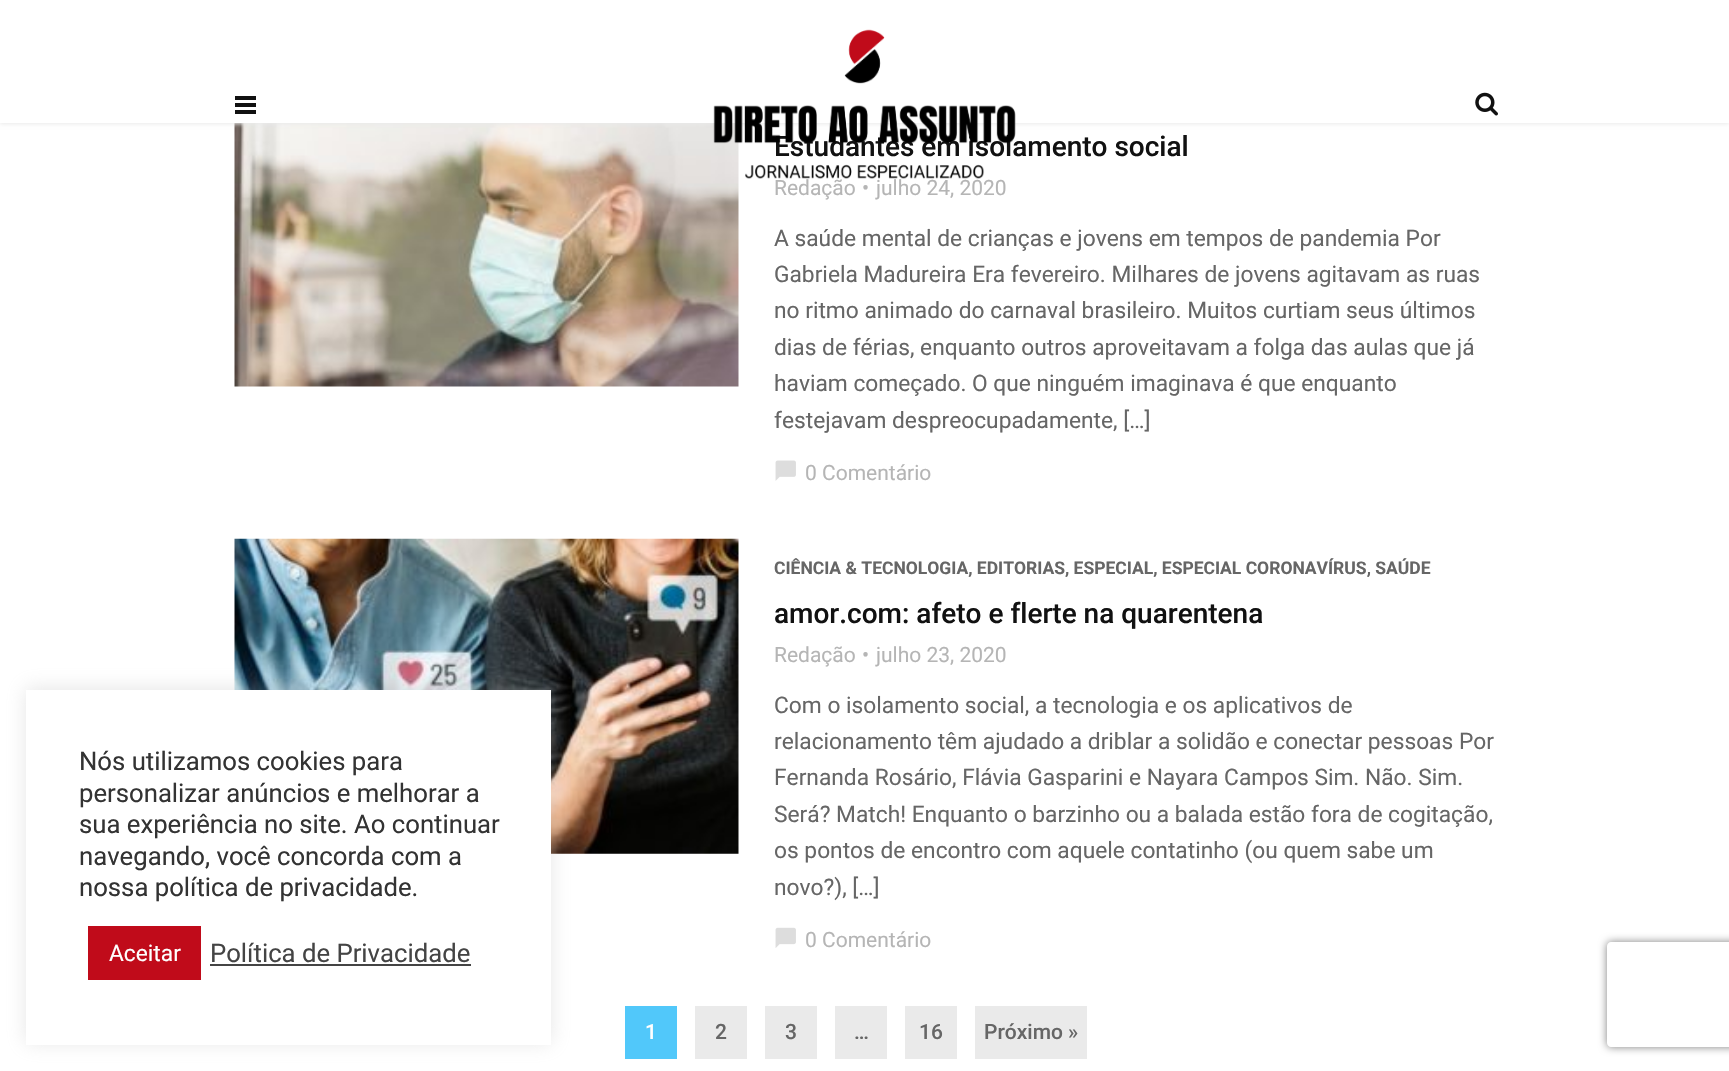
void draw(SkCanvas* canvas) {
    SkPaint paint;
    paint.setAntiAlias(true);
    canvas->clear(0xFFFFFFFF);
    canvas->drawImageRect(SkImages::DeferredFromEncodedData(SkData::MakeFromFileName("img5.png")), SkRect::MakeXYWH(234, 538, 505, 316), SkSamplingOptions());
    paint.setColor(0x4DACABAB);
    paint.setMaskFilter(SkMaskFilter::MakeBlur(kNormal_SkBlurStyle, 9));
    canvas->drawRect(SkRect::MakeXYWH(26, 688, 525, 355), paint);
    paint.setMaskFilter(nullptr);
    paint.setColor(0xFFFFFFFF);
    canvas->drawRect(SkRect::MakeXYWH(26, 690, 525, 355), paint);
    SkFont font1(fontMgr->matchFamilyStyle("Roboto", SkFontStyle::Normal()), 25.7f);
    font1.setSubpixel(true);
    paint.setColor(0xFF333333);
    canvas->drawString("Nós utilizamos cookies para", 79, 770, font1, paint);
    canvas->drawString("personalizar anúncios e melhorar a", 79, 802, font1, paint);
    canvas->drawString("sua experiência no site. Ao continuar", 79, 833, font1, paint);
    canvas->drawString("navegando, você concorda com a", 79, 865, font1, paint);
    canvas->drawString("nossa política de privacidade.", 79, 896, font1, paint);
    paint.setColor(0xFFC00B1A);
    canvas->drawRect(SkRect::MakeXYWH(88, 926, 113, 54), paint);
    SkFont font2(fontMgr->matchFamilyStyle("Roboto", SkFontStyle::Normal()), 22.75f);
    font2.setSubpixel(true);
    paint.setColor(0xFFFFFFFF);
    canvas->drawString("Aceitar", 109, 961, font2, paint);
    paint.setColor(0xFF444444);
    canvas->drawString("Política de Privacidade", 210, 962, font1, paint);
    canvas->drawRect(SkRect::MakeXYWH(210, 964, 261, 2), paint);
    canvas->drawImageRect(SkImages::DeferredFromEncodedData(SkData::MakeFromFileName("img3.png")), SkRect::MakeXYWH(234, 123, 505, 264), SkSamplingOptions());
    paint.setColor(0xFFEAEAEA);
    paint.setMaskFilter(SkMaskFilter::MakeBlur(kNormal_SkBlurStyle, 2));
    canvas->drawRect(SkRect::MakeXYWH(0, 2, 1729, 122), paint);
    paint.setMaskFilter(nullptr);
    paint.setColor(0xFFFFFFFF);
    canvas->drawRect(SkRect::MakeXYWH(0, 0, 1729, 123), paint);
    paint.setColor(0xFF111111);
    canvas->drawRect(SkRect::MakeXYWH(235, 96, 21, 4), paint);
    canvas->drawRect(SkRect::MakeXYWH(235, 103, 21, 4), paint);
    canvas->drawRect(SkRect::MakeXYWH(235, 110, 21, 4), paint);
    SkFont font3(fontMgr->matchFamilyStyle("Roboto", SkFontStyle(500, SkFontStyle::kNormal_Width, SkFontStyle::kUpright_Slant)), 28);
    font3.setSubpixel(true);
    canvas->drawString("Estudantes em isolamento social", 774, 156, font3, paint);
    canvas->drawImageRect(SkImages::DeferredFromEncodedData(SkData::MakeFromFileName("img1.png")), SkRect::MakeXYWH(713, 29, 303, 150), SkSamplingOptions());
    canvas->drawImageRect(SkImages::DeferredFromEncodedData(SkData::MakeFromFileName("img2.png")), SkRect::MakeXYWH(1475, 92, 23, 24), SkSamplingOptions());
    SkFont font4(fontMgr->matchFamilyStyle("Roboto", SkFontStyle::Normal()), 21);
    font4.setSubpixel(true);
    paint.setColor(0xFFB5B5B5);
    canvas->drawString("Redação", 774, 195, font4, paint);
    canvas->drawString("•", 862, 195, font4, paint);
    canvas->drawString("julho 24, 2020", 876, 195, font4, paint);
    paint.setColor(0xFF666666);
    canvas->drawString("A saúde mental de crianças e jovens em tempos de pandemia Por", 774, 246, font2, paint);
    canvas->drawString("Gabriela Madureira Era fevereiro. Milhares de jovens agitavam as ruas", 774, 282, font2, paint);
    canvas->drawString("no ritmo animado do carnaval brasileiro. Muitos curtiam seus últimos", 774, 318, font2, paint);
    canvas->drawString("dias de férias, enquanto outros aproveitavam a folga das aulas que já", 774, 355, font2, paint);
    canvas->drawString("haviam começado. O que ninguém imaginava é que enquanto", 774, 391, font2, paint);
    canvas->drawString("festejavam despreocupadamente, […]", 774, 428, font2, paint);
    canvas->drawImageRect(SkImages::DeferredFromEncodedData(SkData::MakeFromFileName("img4.png")), SkRect::MakeXYWH(775, 460, 21, 21), SkSamplingOptions());
    paint.setColor(0xFFB5B5B5);
    canvas->drawString("0 Comentário", 805, 480, font4, paint);
    SkFont font5(fontMgr->matchFamilyStyle("Roboto", SkFontStyle::Bold()), 17.5f);
    font5.setSubpixel(true);
    paint.setColor(0xFF666666);
    canvas->drawString("CIÊNCIA & TECNOLOGIA, EDITORIAS, ESPECIAL, ESPECIAL CORONAVÍRUS, SAÚDE", 774, 574, font5, paint);
    paint.setColor(0xFF111111);
    canvas->drawString("amor.com: afeto e flerte na quarentena", 774, 623, font3, paint);
    paint.setColor(0xFFB5B5B5);
    canvas->drawString("Redação", 774, 662, font4, paint);
    canvas->drawString("•", 862, 662, font4, paint);
    canvas->drawString("julho 23, 2020", 876, 662, font4, paint);
    paint.setColor(0xFF666666);
    canvas->drawString("Com o isolamento social, a tecnologia e os aplicativos de", 774, 713, font2, paint);
    canvas->drawString("relacionamento têm ajudado a driblar a solidão e conectar pessoas Por", 774, 749, font2, paint);
    canvas->drawString("Fernanda Rosário, Flávia Gasparini e Nayara Campos Sim. Não. Sim.", 774, 785, font2, paint);
    canvas->drawString("Será? Match! Enquanto o barzinho ou a balada estão fora de cogitação,", 774, 822, font2, paint);
    canvas->drawString("os pontos de encontro com aquele contatinho (ou quem sabe um", 774, 858, font2, paint);
    canvas->drawString("novo?), […]", 774, 895, font2, paint);
    canvas->drawImageRect(SkImages::DeferredFromEncodedData(SkData::MakeFromFileName("img6.png")), SkRect::MakeXYWH(775, 927, 21, 21), SkSamplingOptions());
    paint.setColor(0xFFB5B5B5);
    canvas->drawString("0 Comentário", 805, 947, font4, paint);
    paint.setColor(0xFF51C8FA);
    canvas->drawRect(SkRect::MakeXYWH(625, 1006, 52, 53), paint);
    SkFont font6(fontMgr->matchFamilyStyle("Roboto", SkFontStyle(500, SkFontStyle::kNormal_Width, SkFontStyle::kUpright_Slant)), 21);
    font6.setSubpixel(true);
    paint.setColor(0xFFFFFFFF);
    canvas->drawString("1", 645, 1039, font6, paint);
    paint.setColor(0xFFEAEAEA);
    canvas->drawRect(SkRect::MakeXYWH(695, 1006, 52, 53), paint);
    paint.setColor(0xFF666666);
    canvas->drawString("2", 715, 1039, font6, paint);
    paint.setColor(0xFFEAEAEA);
    canvas->drawRect(SkRect::MakeXYWH(765, 1006, 52, 53), paint);
    paint.setColor(0xFF666666);
    canvas->drawString("3", 785, 1039, font6, paint);
    paint.setColor(0xFFEAEAEA);
    canvas->drawRect(SkRect::MakeXYWH(835, 1006, 52, 53), paint);
    paint.setColor(0xFF666666);
    canvas->drawString("…", 854, 1039, font6, paint);
    paint.setColor(0xFFEAEAEA);
    canvas->drawRect(SkRect::MakeXYWH(905, 1006, 52, 53), paint);
    paint.setColor(0xFF666666);
    canvas->drawString("16", 919, 1039, font6, paint);
    paint.setColor(0xFFEAEAEA);
    canvas->drawRect(SkRect::MakeXYWH(975, 1006, 112, 53), paint);
    paint.setColor(0xFF666666);
    canvas->drawString("Próximo »", 984, 1039, font6, paint);
    canvas->save();
    canvas->clipPath(SkPathBuilder(SkPathFillType::kEvenOdd).moveTo(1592, 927).lineTo(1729, 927).lineTo(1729, 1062).lineTo(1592, 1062).close().moveTo(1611, 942).lineTo(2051, 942).cubicTo(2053, 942, 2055, 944, 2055, 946).lineTo(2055, 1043).cubicTo(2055, 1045, 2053, 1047, 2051, 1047).lineTo(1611, 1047).cubicTo(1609, 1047, 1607, 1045, 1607, 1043).lineTo(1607, 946).cubicTo(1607, 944, 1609, 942, 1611, 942).close().detach(), true);
    paint.setColor(0xFF808080);
    paint.setMaskFilter(SkMaskFilter::MakeBlur(kNormal_SkBlurStyle, 4.5f));
    canvas->drawRoundRect(SkRect::MakeXYWH(1607, 942, 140, 105), 4, 4, paint);
    paint.setMaskFilter(nullptr);
    canvas->restore();
}
